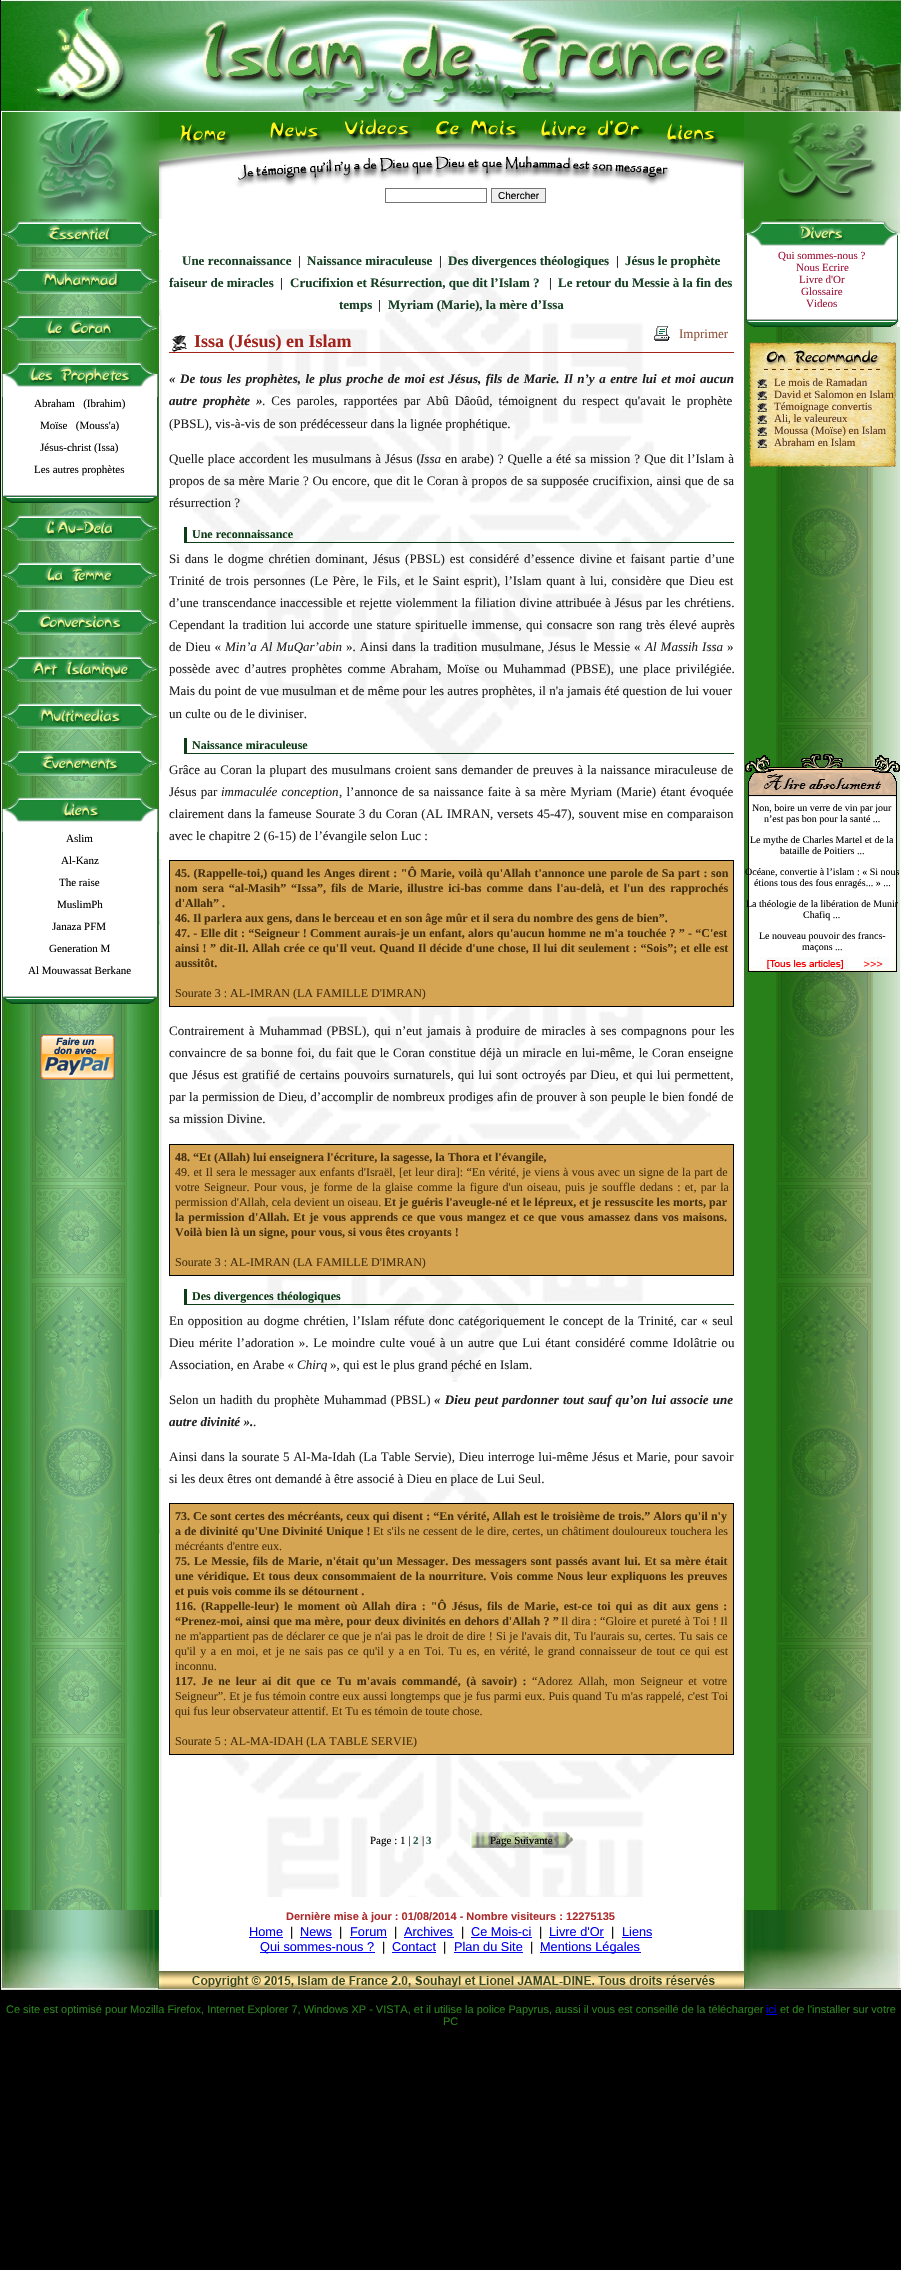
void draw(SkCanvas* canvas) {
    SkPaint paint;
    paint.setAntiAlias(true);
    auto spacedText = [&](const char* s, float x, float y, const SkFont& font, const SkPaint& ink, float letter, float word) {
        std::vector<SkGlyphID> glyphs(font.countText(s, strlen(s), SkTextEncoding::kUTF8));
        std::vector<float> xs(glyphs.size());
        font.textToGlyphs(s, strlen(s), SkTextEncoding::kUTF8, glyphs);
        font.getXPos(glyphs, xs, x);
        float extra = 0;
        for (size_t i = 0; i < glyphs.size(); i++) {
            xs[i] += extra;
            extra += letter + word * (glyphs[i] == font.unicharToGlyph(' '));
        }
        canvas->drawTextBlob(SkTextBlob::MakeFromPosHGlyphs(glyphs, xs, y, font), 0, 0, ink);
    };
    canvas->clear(0xFF000000);
    canvas->drawImageRect(SkImages::DeferredFromEncodedData(SkData::MakeFromFileName("img1.png")), SkRect::MakeXYWH(1, 0, 900, 112), SkSamplingOptions());
    canvas->drawImageRect(SkImages::DeferredFromEncodedData(SkData::MakeFromFileName("img2.png")), SkRect::MakeXYWH(202, 20, 528, 68), SkSamplingOptions());
    canvas->drawImageRect(SkImages::DeferredFromEncodedData(SkData::MakeFromFileName("img3.png")), SkRect::MakeXYWH(1, 219, 900, 1691), SkSamplingOptions());
    canvas->drawImageRect(SkImages::DeferredFromEncodedData(SkData::MakeFromFileName("img4.png")), SkRect::MakeXYWH(1, 112, 900, 107), SkSamplingOptions());
    canvas->drawImageRect(SkImages::DeferredFromEncodedData(SkData::MakeFromFileName("img5.png")), SkRect::MakeXYWH(159, 112, 97, 58), SkSamplingOptions());
    canvas->drawImageRect(SkImages::DeferredFromEncodedData(SkData::MakeFromFileName("img6.png")), SkRect::MakeXYWH(256, 112, 79, 58), SkSamplingOptions());
    canvas->drawImageRect(SkImages::DeferredFromEncodedData(SkData::MakeFromFileName("img7.png")), SkRect::MakeXYWH(335, 112, 87, 58), SkSamplingOptions());
    canvas->drawImageRect(SkImages::DeferredFromEncodedData(SkData::MakeFromFileName("img8.png")), SkRect::MakeXYWH(422, 112, 107, 58), SkSamplingOptions());
    canvas->drawImageRect(SkImages::DeferredFromEncodedData(SkData::MakeFromFileName("img9.png")), SkRect::MakeXYWH(529, 112, 118, 58), SkSamplingOptions());
    canvas->drawImageRect(SkImages::DeferredFromEncodedData(SkData::MakeFromFileName("img10.png")), SkRect::MakeXYWH(647, 112, 97, 58), SkSamplingOptions());
    paint.setStyle(SkPaint::kStroke_Style);
    paint.setStrokeWidth(1);
    paint.setColor(0xFF757575);
    canvas->drawRect(SkRect::MakeXYWH(385.5f, 188.5f, 101, 14), paint);
    paint.setStyle(SkPaint::kFill_Style);
    paint.setColor(0xFFEFEFEF);
    canvas->drawRect(SkRect::MakeXYWH(491.5f, 188.5f, 54, 14), paint);
    paint.setStyle(SkPaint::kStroke_Style);
    paint.setColor(0xFF757575);
    canvas->drawRect(SkRect::MakeXYWH(491.5f, 188.5f, 54, 14), paint);
    SkFont font1(fontMgr->matchFamilyStyle("Liberation Sans", SkFontStyle::Normal()), 10);
    font1.setSubpixel(true);
    paint.setStyle(SkPaint::kFill_Style);
    paint.setColor(0xFF000000);
    canvas->drawString("Chercher", 498, 199, font1, paint);
    canvas->drawImageRect(SkImages::DeferredFromEncodedData(SkData::MakeFromFileName("img11.png")), SkRect::MakeXYWH(1, 221, 158, 26), SkSamplingOptions());
    canvas->drawImageRect(SkImages::DeferredFromEncodedData(SkData::MakeFromFileName("img12.png")), SkRect::MakeXYWH(1, 268, 158, 26), SkSamplingOptions());
    canvas->drawImageRect(SkImages::DeferredFromEncodedData(SkData::MakeFromFileName("img13.png")), SkRect::MakeXYWH(1, 315, 158, 26), SkSamplingOptions());
    canvas->drawImageRect(SkImages::DeferredFromEncodedData(SkData::MakeFromFileName("img14.png")), SkRect::MakeXYWH(1, 362, 158, 35), SkSamplingOptions());
    canvas->drawImageRect(SkImages::DeferredFromEncodedData(SkData::MakeFromFileName("img15.png")), SkRect::MakeXYWH(2, 397, 157, 22), SkSamplingOptions());
    SkFont font2(fontMgr->matchFamilyStyle("Liberation Serif", SkFontStyle::Normal()), 11);
    font2.setSubpixel(true);
    canvas->drawString("Abraham   (Ibrahim)", 34, 407, font2, paint);
    canvas->drawImageRect(SkImages::DeferredFromEncodedData(SkData::MakeFromFileName("img16.png")), SkRect::MakeXYWH(1, 419, 158, 22), SkSamplingOptions());
    canvas->drawString("Moïse   (Mouss'a)", 40, 429, font2, paint);
    canvas->drawImageRect(SkImages::DeferredFromEncodedData(SkData::MakeFromFileName("img16.png")), SkRect::MakeXYWH(1, 441, 158, 22), SkSamplingOptions());
    canvas->drawString("Jésus-christ (Issa)", 40, 451, font2, paint);
    canvas->drawImageRect(SkImages::DeferredFromEncodedData(SkData::MakeFromFileName("img15.png")), SkRect::MakeXYWH(2, 463, 157, 22), SkSamplingOptions());
    canvas->drawString("Les autres prophètes", 34, 473, font2, paint);
    canvas->drawImageRect(SkImages::DeferredFromEncodedData(SkData::MakeFromFileName("img17.png")), SkRect::MakeXYWH(1, 485, 158, 18), SkSamplingOptions());
    canvas->drawImageRect(SkImages::DeferredFromEncodedData(SkData::MakeFromFileName("img18.png")), SkRect::MakeXYWH(2, 515, 157, 26), SkSamplingOptions());
    canvas->drawImageRect(SkImages::DeferredFromEncodedData(SkData::MakeFromFileName("img19.png")), SkRect::MakeXYWH(1, 562, 158, 26), SkSamplingOptions());
    canvas->drawImageRect(SkImages::DeferredFromEncodedData(SkData::MakeFromFileName("img20.png")), SkRect::MakeXYWH(1, 609, 158, 26), SkSamplingOptions());
    canvas->drawImageRect(SkImages::DeferredFromEncodedData(SkData::MakeFromFileName("img21.png")), SkRect::MakeXYWH(1, 656, 158, 26), SkSamplingOptions());
    canvas->drawImageRect(SkImages::DeferredFromEncodedData(SkData::MakeFromFileName("img22.png")), SkRect::MakeXYWH(2, 703, 157, 26), SkSamplingOptions());
    canvas->drawImageRect(SkImages::DeferredFromEncodedData(SkData::MakeFromFileName("img23.png")), SkRect::MakeXYWH(2, 750, 157, 26), SkSamplingOptions());
    canvas->drawImageRect(SkImages::DeferredFromEncodedData(SkData::MakeFromFileName("img24.png")), SkRect::MakeXYWH(1, 797, 158, 35), SkSamplingOptions());
    canvas->drawImageRect(SkImages::DeferredFromEncodedData(SkData::MakeFromFileName("img16.png")), SkRect::MakeXYWH(1, 832, 158, 22), SkSamplingOptions());
    canvas->drawString("Aslim", 66, 842, font2, paint);
    canvas->drawImageRect(SkImages::DeferredFromEncodedData(SkData::MakeFromFileName("img15.png")), SkRect::MakeXYWH(2, 854, 157, 22), SkSamplingOptions());
    canvas->drawString("Al-Kanz", 61, 864, font2, paint);
    canvas->drawImageRect(SkImages::DeferredFromEncodedData(SkData::MakeFromFileName("img16.png")), SkRect::MakeXYWH(1, 876, 158, 22), SkSamplingOptions());
    canvas->drawString("The raise", 59, 886, font2, paint);
    canvas->drawImageRect(SkImages::DeferredFromEncodedData(SkData::MakeFromFileName("img16.png")), SkRect::MakeXYWH(1, 898, 158, 22), SkSamplingOptions());
    canvas->drawString("MuslimPh", 57, 908, font2, paint);
    canvas->drawImageRect(SkImages::DeferredFromEncodedData(SkData::MakeFromFileName("img15.png")), SkRect::MakeXYWH(2, 920, 157, 22), SkSamplingOptions());
    canvas->drawString("Janaza PFM", 52, 930, font2, paint);
    canvas->drawImageRect(SkImages::DeferredFromEncodedData(SkData::MakeFromFileName("img16.png")), SkRect::MakeXYWH(1, 942, 158, 22), SkSamplingOptions());
    canvas->drawString("Generation M", 49, 952, font2, paint);
    canvas->drawImageRect(SkImages::DeferredFromEncodedData(SkData::MakeFromFileName("img16.png")), SkRect::MakeXYWH(1, 964, 158, 22), SkSamplingOptions());
    canvas->drawString("Al Mouwassat Berkane", 28, 974, font2, paint);
    canvas->drawImageRect(SkImages::DeferredFromEncodedData(SkData::MakeFromFileName("img25.png")), SkRect::MakeXYWH(2, 986, 157, 18), SkSamplingOptions());
    paint.setStyle(SkPaint::kStroke_Style);
    paint.setColor(0xFF757575);
    canvas->drawRect(SkRect::MakeXYWH(40.5f, 1034.5f, 74, 45), paint);
    canvas->drawImageRect(SkImages::DeferredFromEncodedData(SkData::MakeFromFileName("img26.png")), SkRect::MakeXYWH(41, 1035, 73, 44), SkSamplingOptions());
    canvas->drawImageRect(SkImages::DeferredFromEncodedData(SkData::MakeFromFileName("img27.png")), SkRect::MakeXYWH(159, 219, 585, 1678), SkSamplingOptions());
    SkFont font3(fontMgr->matchFamilyStyle("Liberation Serif", SkFontStyle::Bold()), 13);
    font3.setSubpixel(true);
    paint.setStyle(SkPaint::kFill_Style);
    paint.setColor(0xFF174024);
    canvas->drawString("Une reconnaissance", 182, 265, font3, paint);
    paint.setColor(0xFF222222);
    canvas->drawString("|", 298, 265, font3, paint);
    paint.setColor(0xFF174024);
    canvas->drawString("Naissance miraculeuse", 307, 265, font3, paint);
    paint.setColor(0xFF222222);
    canvas->drawString("|", 439, 265, font3, paint);
    paint.setColor(0xFF174024);
    canvas->drawString("Des divergences théologiques", 448, 265, font3, paint);
    paint.setColor(0xFF222222);
    canvas->drawString("|", 616, 265, font3, paint);
    paint.setColor(0xFF174024);
    canvas->drawString("Jésus le prophète", 625, 265, font3, paint);
    canvas->drawString("faiseur de miracles", 169, 287, font3, paint);
    paint.setColor(0xFF222222);
    canvas->drawString("|", 280, 287, font3, paint);
    paint.setColor(0xFF174024);
    canvas->drawString("Crucifixion et Résurrection, que dit l’Islam ?", 290, 287, font3, paint);
    paint.setColor(0xFF222222);
    canvas->drawString("|", 549, 287, font3, paint);
    paint.setColor(0xFF174024);
    canvas->drawString("Le retour du Messie à la fin des", 558, 287, font3, paint);
    canvas->drawString("temps", 339, 309, font3, paint);
    paint.setColor(0xFF222222);
    canvas->drawString("|", 378, 309, font3, paint);
    paint.setColor(0xFF174024);
    canvas->drawString("Myriam (Marie), la mère d’Issa", 388, 309, font3, paint);
    canvas->drawImageRect(SkImages::DeferredFromEncodedData(SkData::MakeFromFileName("img28.png")), SkRect::MakeXYWH(172, 335, 15, 17), SkSamplingOptions());
    paint.setColor(0xFFA4221C);
    canvas->drawRect(SkRect::MakeXYWH(169, 352, 565, 1), paint);
    SkFont font4(fontMgr->matchFamilyStyle("Liberation Serif", SkFontStyle::Bold()), 18);
    font4.setSubpixel(true);
    canvas->drawString("Issa (Jésus) en Islam", 194, 347, font4, paint);
    canvas->drawImageRect(SkImages::DeferredFromEncodedData(SkData::MakeFromFileName("img29.png")), SkRect::MakeXYWH(654, 326, 16, 15), SkSamplingOptions());
    SkFont font5(fontMgr->matchFamilyStyle("Liberation Serif", SkFontStyle::Normal()), 13);
    font5.setSubpixel(true);
    paint.setColor(0xFF915740);
    canvas->drawString("Imprimer", 679, 338, font5, paint);
    SkFont font6(fontMgr->matchFamilyStyle("Liberation Serif", SkFontStyle::BoldItalic()), 13);
    font6.setSubpixel(true);
    paint.setColor(0xFF222222);
    spacedText("« De tous les prophètes, le plus proche de moi est Jésus, fils de Marie. Il n’y a entre lui et moi aucun", 169, 383, font6, paint, 0, 1.3f);
    spacedText("autre prophète »", 169, 405, font6, paint, 0, 2.75f);
    spacedText(". Ces paroles, rapportées par Abû Dâoûd, témoignent du respect qu'avait le prophète", 262, 405, font5, paint, 0, 2.75f);
    canvas->drawString("(PBSL), vis-à-vis de son prédécesseur dans la lignée prophétique.", 169, 428, font5, paint);
    spacedText("Quelle place accordent les musulmans à Jésus (", 169, 463, font5, paint, 0, 0.75f);
    SkFont font7(fontMgr->matchFamilyStyle("Liberation Serif", SkFontStyle::Italic()), 13);
    font7.setSubpixel(true);
    canvas->drawString("Issa", 420, 463, font7, paint);
    spacedText("en arabe) ? Quelle a été sa mission ? Que dit l’Islam à", 445, 463, font5, paint, 0, 0.75f);
    spacedText("propos de sa mère Marie ? Ou encore, que dit le Coran à propos de sa supposée crucifixion, ainsi que de sa", 169, 485, font5, paint, 0, 0.45f);
    canvas->drawString("résurrection ?", 169, 507, font5, paint);
    paint.setColor(0xFF0C3D16);
    canvas->drawRect(SkRect::MakeXYWH(184, 542, 550, 1), paint);
    canvas->drawRect(SkRect::MakeXYWH(184, 527, 3, 16), paint);
    SkFont font8(fontMgr->matchFamilyStyle("Liberation Serif", SkFontStyle::Bold()), 12);
    font8.setSubpixel(true);
    canvas->drawString("Une reconnaissance", 192, 538, font8, paint);
    paint.setColor(0xFF222222);
    spacedText("Si dans le dogme chrétien dominant, Jésus (PBSL) est considéré d’essence divine", 169, 563, font5, paint, 0, 1.75f);
    spacedText("et faisant partie d’une", 616, 563, font5, paint, 0, 1.75f);
    spacedText("Trinité de trois personnes (Le Père, le Fils, et le Saint esprit), l’Islam quant à lui, considère que Dieu est", 169, 585, font5, paint, 0, 1.3f);
    spacedText("d’une transcendance inaccessible et rejette violemment la filiation divine attribuée à Jésus par les chrétiens.", 169, 607, font5, paint, 0, 0.5f);
    spacedText("Cependant la tradition lui accorde une stature spirituelle immense, qui consacre son rang très élevé auprès", 169, 629, font5, paint, 0, 1);
    spacedText("de Dieu «", 169, 651, font5, paint, 0, 0.75f);
    spacedText("Min’a Al MuQar’abin", 225, 651, font7, paint, 0, 0.75f);
    spacedText("». Ainsi dans la tradition musulmane, Jésus le Messie «", 346, 651, font5, paint, 0, 0.75f);
    spacedText("Al Massih Issa", 645, 651, font7, paint, 0, 0.75f);
    canvas->drawString("»", 727, 651, font5, paint);
    spacedText("possède avec d’autres prophètes comme", 169, 673, font5, paint, 0, 2);
    spacedText("Abraham, Moïse ou Muhammad (PBSE), une place privilégiée.", 390, 673, font5, paint, 0, 2);
    canvas->drawString("Mais du point de vue musulman et de même pour les autres prophètes, il n'a jamais été question de lui vouer", 169, 695, font5, paint);
    canvas->drawString("un culte ou de le diviniser.", 169, 718, font5, paint);
    paint.setColor(0xFF0C3D16);
    canvas->drawRect(SkRect::MakeXYWH(184, 753, 550, 1), paint);
    canvas->drawRect(SkRect::MakeXYWH(184, 738, 3, 16), paint);
    canvas->drawString("Naissance miraculeuse", 192, 749, font8, paint);
    paint.setColor(0xFF222222);
    spacedText("Grâce au Coran la plupart des musulmans croient sans demander de preuves à la naissance miraculeuse de", 169, 774, font5, paint, 0, 0.75f);
    spacedText("Jésus par", 169, 796, font5, paint, 0, 1);
    spacedText("immaculée conception", 221, 796, font7, paint, 0, 1);
    spacedText(", l’annonce de sa naissance faite à sa mère Myriam (Marie) étant évoquée", 339, 796, font5, paint, 0, 1);
    spacedText("clairement dans la fameuse Sourate 3 du Coran (AL IMRAN, versets 45-47), souvent mise en comparaison", 169, 818, font5, paint, 0, 0.5f);
    canvas->drawString("avec le chapitre 2 (6-15) de l’évangile selon Luc :", 169, 840, font5, paint);
    paint.setColor(0xFFD6A553);
    canvas->drawRect(SkRect::MakeXYWH(169.5f, 860.5f, 564, 146), paint);
    paint.setStyle(SkPaint::kStroke_Style);
    paint.setColor(0xFF000000);
    canvas->drawRect(SkRect::MakeXYWH(169.5f, 860.5f, 564, 146), paint);
    paint.setStyle(SkPaint::kFill_Style);
    paint.setColor(0xFF45310F);
    spacedText("45. (Rappelle-toi,) quand les Anges dirent : \"Ô Marie, voilà qu'Allah t'annonce une parole de Sa part : son", 175, 877, font8, paint, 0, 0.5f);
    spacedText("nom sera “al-Masih” “Issa”, fils de Marie, illustre ici-bas comme dans l'au-delà, et l'un des rapprochés", 175, 892, font8, paint, 0, 1.9f);
    canvas->drawString("d'Allah” .", 175, 907, font8, paint);
    canvas->drawString("46. Il parlera aux gens, dans le berceau et en son âge mûr et il sera du nombre des gens de bien”.", 175, 922, font8, paint);
    spacedText("47. - Elle dit : “Seigneur ! Comment aurais-je un enfant, alors qu'aucun homme ne m'a touchée ? ” - “C'est", 175, 937, font8, paint, 0, 0.25f);
    spacedText("ainsi ! ” dit-Il. Allah crée ce qu'Il veut. Quand Il décide d'une chose, Il lui dit seulement : “Sois”; et elle est", 175, 952, font8, paint, 0, 0.5f);
    canvas->drawString("aussitôt.", 175, 967, font8, paint);
    SkFont font9(fontMgr->matchFamilyStyle("Liberation Serif", SkFontStyle::Normal()), 12);
    font9.setSubpixel(true);
    canvas->drawString("Sourate 3 : AL-IMRAN (LA FAMILLE D'IMRAN)", 175, 997, font9, paint);
    paint.setColor(0xFF222222);
    spacedText("Contrairement à Muhammad (PBSL), qui n’eut jamais à produire de miracles à ses compagnons pour les", 169, 1035, font5, paint, 0, 1.4f);
    spacedText("convaincre de sa bonne foi, du fait que le Coran constitue déjà un miracle en lui-même, le Coran enseigne", 169, 1057, font5, paint, 0, 0.75f);
    spacedText("que Jésus est gratifié de certains pouvoirs surnaturels, qui lui sont octroyés par Dieu, et qui lui permettent,", 169, 1079, font5, paint, 0, 0.75f);
    spacedText("par la permission de Dieu, d’accomplir de nombreux prodiges afin de prouver à son peuple le bien fondé de", 169, 1101, font5, paint, 0, 0.25f);
    canvas->drawString("sa mission Divine.", 169, 1123, font5, paint);
    paint.setColor(0xFFD6A553);
    canvas->drawRect(SkRect::MakeXYWH(169.5f, 1144.5f, 564, 131), paint);
    paint.setStyle(SkPaint::kStroke_Style);
    paint.setColor(0xFF000000);
    canvas->drawRect(SkRect::MakeXYWH(169.5f, 1144.5f, 564, 131), paint);
    paint.setStyle(SkPaint::kFill_Style);
    paint.setColor(0xFF45310F);
    canvas->drawString("48. “Et (Allah) lui enseignera l'écriture, la sagesse, la Thora et l'évangile,", 175, 1161, font8, paint);
    spacedText("49. et Il sera le messager aux enfants d'Israël, [et leur dira]: “En vérité, je viens à vous avec un signe de la part de", 175, 1176, font9, paint, 0, 0.4f);
    spacedText("votre Seigneur. Pour vous, je forme de la glaise comme la figure d'un oiseau, puis je souffle dedans : et, par la", 175, 1191, font9, paint, 0, 1.25f);
    spacedText("permission d'Allah, cela devient un oiseau.", 175, 1206, font9, paint, 0, 0.1f);
    spacedText("Et je guéris l'aveugle-né et le lépreux, et je ressuscite les morts, par", 384, 1206, font8, paint, 0, 0.1f);
    spacedText("la permission d'Allah. Et je vous apprends ce que vous mangez et ce que vous amassez dans vos maisons.", 175, 1221, font8, paint, 0, 1);
    canvas->drawString("Voilà bien là un signe, pour vous, si vous êtes croyants !", 175, 1236, font8, paint);
    canvas->drawString("Sourate 3 : AL-IMRAN (LA FAMILLE D'IMRAN)", 175, 1266, font9, paint);
    paint.setColor(0xFF0C3D16);
    canvas->drawRect(SkRect::MakeXYWH(184, 1304, 550, 1), paint);
    canvas->drawRect(SkRect::MakeXYWH(184, 1289, 3, 16), paint);
    canvas->drawString("Des divergences théologiques", 192, 1300, font8, paint);
    paint.setColor(0xFF222222);
    spacedText("En opposition au dogme chrétien, l’Islam réfute donc catégoriquement le concept de la Trinité, car « seul", 169, 1325, font5, paint, 0, 1.1f);
    spacedText("Dieu mérite l’adoration ». Le moindre culte voué à un autre que Lui étant considéré comme Idolâtrie ou", 169, 1347, font5, paint, 0, 1.5f);
    canvas->drawString("Association, en Arabe «", 169, 1369, font5, paint);
    canvas->drawString("Chirq", 297, 1369, font7, paint);
    canvas->drawString("», qui est le plus grand péché en Islam.", 330, 1369, font5, paint);
    spacedText("Selon un hadith du", 169, 1404, font5, paint, 0, 1);
    spacedText("prophète Muhammad (PBSL)", 274, 1404, font5, paint, 0, 1);
    spacedText("« Dieu peut pardonner tout sauf qu’on lui associe une", 434, 1404, font6, paint, 0, 1);
    canvas->drawString("autre divinité ».", 169, 1426, font6, paint);
    canvas->drawString(".", 253, 1426, font5, paint);
    spacedText("Ainsi dans la sourate 5 Al-Ma-Idah (La Table Servie), Dieu interroge lui-même Jésus et Marie, pour savoir", 169, 1461, font5, paint, 0, 0.5f);
    canvas->drawString("si les deux êtres ont demandé à être associé à Dieu en place de Lui Seul.", 169, 1483, font5, paint);
    paint.setColor(0xFFD6A553);
    canvas->drawRect(SkRect::MakeXYWH(169.5f, 1503.5f, 564, 251), paint);
    paint.setStyle(SkPaint::kStroke_Style);
    paint.setColor(0xFF000000);
    canvas->drawRect(SkRect::MakeXYWH(169.5f, 1503.5f, 564, 251), paint);
    paint.setStyle(SkPaint::kFill_Style);
    paint.setColor(0xFF45310F);
    spacedText("73. Ce sont certes des mécréants, ceux qui disent : “En vérité, Allah est le troisième de trois.” Alors qu'il n'y", 175, 1520, font8, paint, 0, 0.1f);
    spacedText("a de divinité qu'Une Divinité Unique !", 175, 1535, font8, paint, 0, 0.25f);
    spacedText("Et s'ils ne cessent de le dire, certes, un châtiment douloureux touchera les", 373, 1535, font9, paint, 0, 0.25f);
    canvas->drawString("mécréants d'entre eux.", 175, 1550, font9, paint);
    spacedText("75. Le Messie, fils de Marie, n'était qu'un Messager. Des messagers sont passés avant lui. Et sa mère était", 175, 1565, font8, paint, 0, 0.9f);
    spacedText("une véridique. Et tous deux consommaient de la nourriture. Vois comme Nous leur expliquons les preuves", 175, 1580, font8, paint, 0, 0.75f);
    canvas->drawString("et puis vois comme ils se détournent .", 175, 1595, font8, paint);
    spacedText("116. (Rappelle-leur) le moment où Allah dira : \"Ô Jésus, fils de Marie, est-ce toi qui as dit aux gens :", 175, 1610, font8, paint, 0, 2);
    spacedText("“Prenez-moi, ainsi que ma mère, pour deux divinités en dehors d'Allah ? ”", 175, 1625, font8, paint, 0, 0.25f);
    spacedText("Il dira : “Gloire et pureté à Toi ! Il", 561, 1625, font9, paint, 0, 0.25f);
    spacedText("ne m'appartient pas de déclarer ce que je n'ai pas le droit de dire ! Si je l'avais dit, Tu l'aurais su, certes. Tu sais ce", 175, 1640, font9, paint, 0, 0.3f);
    spacedText("qu'il y a en moi, et je ne sais pas ce qu'il y a en Toi. Tu es, en vérité, le grand connaisseur de tout ce qui est", 175, 1655, font9, paint, 0, 1.5f);
    canvas->drawString("inconnu.", 175, 1670, font9, paint);
    spacedText("117. Je ne leur ai dit que ce Tu m'avais commandé, (à savoir) :", 175, 1685, font8, paint, 0, 2.5f);
    spacedText("“Adorez Allah, mon Seigneur et votre", 532, 1685, font9, paint, 0, 2.5f);
    spacedText("Seigneur”. Et je fus témoin contre eux aussi longtemps que je fus parmi eux. Puis quand Tu m'as rappelé, c'est Toi", 175, 1700, font9, paint, 0, 0.2f);
    canvas->drawString("qui fus leur observateur attentif. Et Tu es témoin de toute chose.", 175, 1715, font9, paint);
    canvas->drawString("Sourate 5 : AL-MA-IDAH (LA TABLE SERVIE)", 175, 1745, font9, paint);
    paint.setColor(0xFF000000);
    canvas->drawString("Page : 1 |", 370, 1844, font2, paint);
    SkFont font10(fontMgr->matchFamilyStyle("Liberation Serif", SkFontStyle::Bold()), 11);
    font10.setSubpixel(true);
    paint.setColor(0xFF2B5E46);
    canvas->drawString("2", 413, 1844, font10, paint);
    paint.setColor(0xFF000000);
    canvas->drawString("|", 422, 1844, font2, paint);
    paint.setColor(0xFF2B5E46);
    canvas->drawString("3", 426, 1844, font10, paint);
    canvas->drawImageRect(SkImages::DeferredFromEncodedData(SkData::MakeFromFileName("img30.png")), SkRect::MakeXYWH(470, 1832, 103, 16), SkSamplingOptions());
    paint.setColor(0xFF000000);
    canvas->drawString("Page Suivante", 490, 1844, font2, paint);
    canvas->drawImageRect(SkImages::DeferredFromEncodedData(SkData::MakeFromFileName("img31.png")), SkRect::MakeXYWH(744, 221, 157, 28), SkSamplingOptions());
    canvas->drawImageRect(SkImages::DeferredFromEncodedData(SkData::MakeFromFileName("img32.png")), SkRect::MakeXYWH(744, 249, 156, 12), SkSamplingOptions());
    paint.setColor(0xFF9E163C);
    canvas->drawString("Qui sommes-nous ?", 778, 259, font2, paint);
    canvas->drawImageRect(SkImages::DeferredFromEncodedData(SkData::MakeFromFileName("img32.png")), SkRect::MakeXYWH(744, 261, 156, 12), SkSamplingOptions());
    canvas->drawString("Nous Ecrire", 796, 271, font2, paint);
    canvas->drawImageRect(SkImages::DeferredFromEncodedData(SkData::MakeFromFileName("img32.png")), SkRect::MakeXYWH(744, 273, 156, 12), SkSamplingOptions());
    canvas->drawString("Livre d'Or", 799, 283, font2, paint);
    canvas->drawImageRect(SkImages::DeferredFromEncodedData(SkData::MakeFromFileName("img32.png")), SkRect::MakeXYWH(744, 285, 156, 12), SkSamplingOptions());
    canvas->drawString("Glossaire", 801, 295, font2, paint);
    canvas->drawImageRect(SkImages::DeferredFromEncodedData(SkData::MakeFromFileName("img32.png")), SkRect::MakeXYWH(744, 297, 156, 12), SkSamplingOptions());
    canvas->drawString("Videos", 806, 307, font2, paint);
    canvas->drawImageRect(SkImages::DeferredFromEncodedData(SkData::MakeFromFileName("img33.png")), SkRect::MakeXYWH(744, 309, 156, 18), SkSamplingOptions());
    canvas->drawImageRect(SkImages::DeferredFromEncodedData(SkData::MakeFromFileName("img34.png")), SkRect::MakeXYWH(744, 342, 152, 34), SkSamplingOptions());
    canvas->drawImageRect(SkImages::DeferredFromEncodedData(SkData::MakeFromFileName("img35.png")), SkRect::MakeXYWH(744, 376, 152, 12), SkSamplingOptions());
    paint.setColor(0xFF5B331F);
    canvas->drawString("Le mois de Ramadan", 774, 386, font2, paint);
    canvas->drawImageRect(SkImages::DeferredFromEncodedData(SkData::MakeFromFileName("img35.png")), SkRect::MakeXYWH(744, 388, 152, 12), SkSamplingOptions());
    canvas->drawString("David et Salomon en Islam", 774, 398, font2, paint);
    canvas->drawImageRect(SkImages::DeferredFromEncodedData(SkData::MakeFromFileName("img35.png")), SkRect::MakeXYWH(744, 400, 152, 12), SkSamplingOptions());
    canvas->drawString("Témoignage convertis", 774, 410, font2, paint);
    canvas->drawImageRect(SkImages::DeferredFromEncodedData(SkData::MakeFromFileName("img35.png")), SkRect::MakeXYWH(744, 412, 152, 12), SkSamplingOptions());
    canvas->drawString("Ali, le valeureux", 774, 422, font2, paint);
    canvas->drawImageRect(SkImages::DeferredFromEncodedData(SkData::MakeFromFileName("img35.png")), SkRect::MakeXYWH(744, 424, 152, 12), SkSamplingOptions());
    canvas->drawString("Moussa (Moïse) en Islam", 774, 434, font2, paint);
    canvas->drawImageRect(SkImages::DeferredFromEncodedData(SkData::MakeFromFileName("img35.png")), SkRect::MakeXYWH(744, 436, 152, 12), SkSamplingOptions());
    canvas->drawString("Abraham en Islam", 774, 446, font2, paint);
    canvas->drawImageRect(SkImages::DeferredFromEncodedData(SkData::MakeFromFileName("img36.png")), SkRect::MakeXYWH(744, 448, 152, 19), SkSamplingOptions());
    canvas->drawImageRect(SkImages::DeferredFromEncodedData(SkData::MakeFromFileName("img37.png")), SkRect::MakeXYWH(745, 754, 155, 43), SkSamplingOptions());
    canvas->drawImageRect(SkImages::DeferredFromEncodedData(SkData::MakeFromFileName("img38.png")), SkRect::MakeXYWH(744, 797, 153, 32), SkSamplingOptions());
    SkFont font11(fontMgr->matchFamilyStyle("Liberation Serif", SkFontStyle::Normal()), 10);
    font11.setSubpixel(true);
    paint.setColor(0xFF000000);
    canvas->drawString("Non, boire un verre de vin par jour", 752, 811, font11, paint);
    canvas->drawString("n’est pas bon pour la santé ...", 764, 822, font11, paint);
    canvas->drawImageRect(SkImages::DeferredFromEncodedData(SkData::MakeFromFileName("img38.png")), SkRect::MakeXYWH(744, 829, 153, 32), SkSamplingOptions());
    canvas->drawString("Le mythe de Charles Martel et de la", 750, 843, font11, paint);
    canvas->drawString("bataille de Poitiers ...", 780, 854, font11, paint);
    canvas->drawImageRect(SkImages::DeferredFromEncodedData(SkData::MakeFromFileName("img38.png")), SkRect::MakeXYWH(744, 861, 153, 32), SkSamplingOptions());
    canvas->drawString("Océane, convertie à l’islam : « Si nous", 745, 875, font11, paint);
    canvas->drawString("étions tous des fous enragés... » ...", 754, 886, font11, paint);
    canvas->drawImageRect(SkImages::DeferredFromEncodedData(SkData::MakeFromFileName("img38.png")), SkRect::MakeXYWH(744, 893, 153, 32), SkSamplingOptions());
    canvas->drawString("La théologie de la libération de Munir", 746, 907, font11, paint);
    canvas->drawString("Chafiq ...", 803, 918, font11, paint);
    canvas->drawImageRect(SkImages::DeferredFromEncodedData(SkData::MakeFromFileName("img38.png")), SkRect::MakeXYWH(744, 925, 153, 32), SkSamplingOptions());
    canvas->drawString("Le nouveau pouvoir des francs-", 759, 939, font11, paint);
    canvas->drawString("maçons ...", 802, 950, font11, paint);
    canvas->drawImageRect(SkImages::DeferredFromEncodedData(SkData::MakeFromFileName("img39.png")), SkRect::MakeXYWH(744, 957, 157, 15), SkSamplingOptions());
    canvas->drawImageRect(SkImages::DeferredFromEncodedData(SkData::MakeFromFileName("img40.png")), SkRect::MakeXYWH(1, 1910, 900, 80), SkSamplingOptions());
    SkFont font12(fontMgr->matchFamilyStyle("Liberation Sans", SkFontStyle::Bold()), 11);
    font12.setSubpixel(true);
    paint.setColor(0xFFAC2C2E);
    canvas->drawString("Dernière mise à jour : 01/08/2014 - Nombre visiteurs : 12275135", 286, 1920, font12, paint);
    SkFont font13(fontMgr->matchFamilyStyle("Liberation Sans", SkFontStyle::Normal()), 12.75f);
    font13.setSubpixel(true);
    paint.setColor(0xFF0000EE);
    canvas->drawString("Home", 249, 1936, font13, paint);
    canvas->drawRect(SkRect::MakeXYWH(249, 1937, 34, 1), paint);
    paint.setColor(0xFF000000);
    canvas->drawString("|", 290, 1936, font13, paint);
    paint.setColor(0xFF0000EE);
    canvas->drawString("News", 300, 1936, font13, paint);
    canvas->drawRect(SkRect::MakeXYWH(300, 1937, 32, 1), paint);
    paint.setColor(0xFF000000);
    canvas->drawString("|", 339, 1936, font13, paint);
    paint.setColor(0xFF0000EE);
    canvas->drawString("Forum", 350, 1936, font13, paint);
    canvas->drawRect(SkRect::MakeXYWH(350, 1937, 37, 1), paint);
    paint.setColor(0xFF000000);
    canvas->drawString("|", 394, 1936, font13, paint);
    paint.setColor(0xFF0000EE);
    canvas->drawString("Archives", 404, 1936, font13, paint);
    canvas->drawRect(SkRect::MakeXYWH(404, 1937, 50, 1), paint);
    paint.setColor(0xFF000000);
    canvas->drawString("|", 461, 1936, font13, paint);
    paint.setColor(0xFF0000EE);
    canvas->drawString("Ce Mois-ci", 471, 1936, font13, paint);
    canvas->drawRect(SkRect::MakeXYWH(471, 1937, 61, 1), paint);
    paint.setColor(0xFF000000);
    canvas->drawString("|", 539, 1936, font13, paint);
    paint.setColor(0xFF0000EE);
    canvas->drawString("Livre d'Or", 549, 1936, font13, paint);
    canvas->drawRect(SkRect::MakeXYWH(549, 1937, 55, 1), paint);
    paint.setColor(0xFF000000);
    canvas->drawString("|", 611, 1936, font13, paint);
    paint.setColor(0xFF0000EE);
    canvas->drawString("Liens", 622, 1936, font13, paint);
    canvas->drawRect(SkRect::MakeXYWH(622, 1937, 30, 1), paint);
    canvas->drawRect(SkRect::MakeXYWH(260, 1952, 115, 1), paint);
    canvas->drawString("Qui sommes-nous ?", 260, 1951, font13, paint);
    paint.setColor(0xFF000000);
    canvas->drawString("|", 382, 1951, font13, paint);
    paint.setColor(0xFF0000EE);
    canvas->drawString("Contact", 392, 1951, font13, paint);
    canvas->drawRect(SkRect::MakeXYWH(392, 1952, 44, 1), paint);
    paint.setColor(0xFF000000);
    canvas->drawString("|", 443, 1951, font13, paint);
    paint.setColor(0xFF0000EE);
    canvas->drawString("Plan du Site", 454, 1951, font13, paint);
    canvas->drawRect(SkRect::MakeXYWH(454, 1952, 69, 1), paint);
    paint.setColor(0xFF000000);
    canvas->drawString("|", 530, 1951, font13, paint);
    paint.setColor(0xFF0000EE);
    canvas->drawRect(SkRect::MakeXYWH(540, 1952, 101, 1), paint);
    canvas->drawString("Mentions Légales", 540, 1951, font13, paint);
    SkFont font14(fontMgr->matchFamilyStyle("Liberation Sans", SkFontStyle::Normal()), 11);
    font14.setSubpixel(true);
    paint.setColor(0xFF2A821C);
    canvas->drawString("Ce site est optimisé pour Mozilla Firefox, Internet Explorer 7, Windows XP - VISTA, et il utilise la police Papyrus, aussi il vous est conseillé de la télécharger", 6, 2013, font14, paint);
    paint.setColor(0xFF0000EE);
    canvas->drawString("ici", 766, 2013, font14, paint);
    canvas->drawRect(SkRect::MakeXYWH(766, 2014, 11, 1), paint);
    paint.setColor(0xFF2A821C);
    canvas->drawString("et de l'installer sur votre", 780, 2013, font14, paint);
    canvas->drawString("PC", 443, 2025, font14, paint);
}
